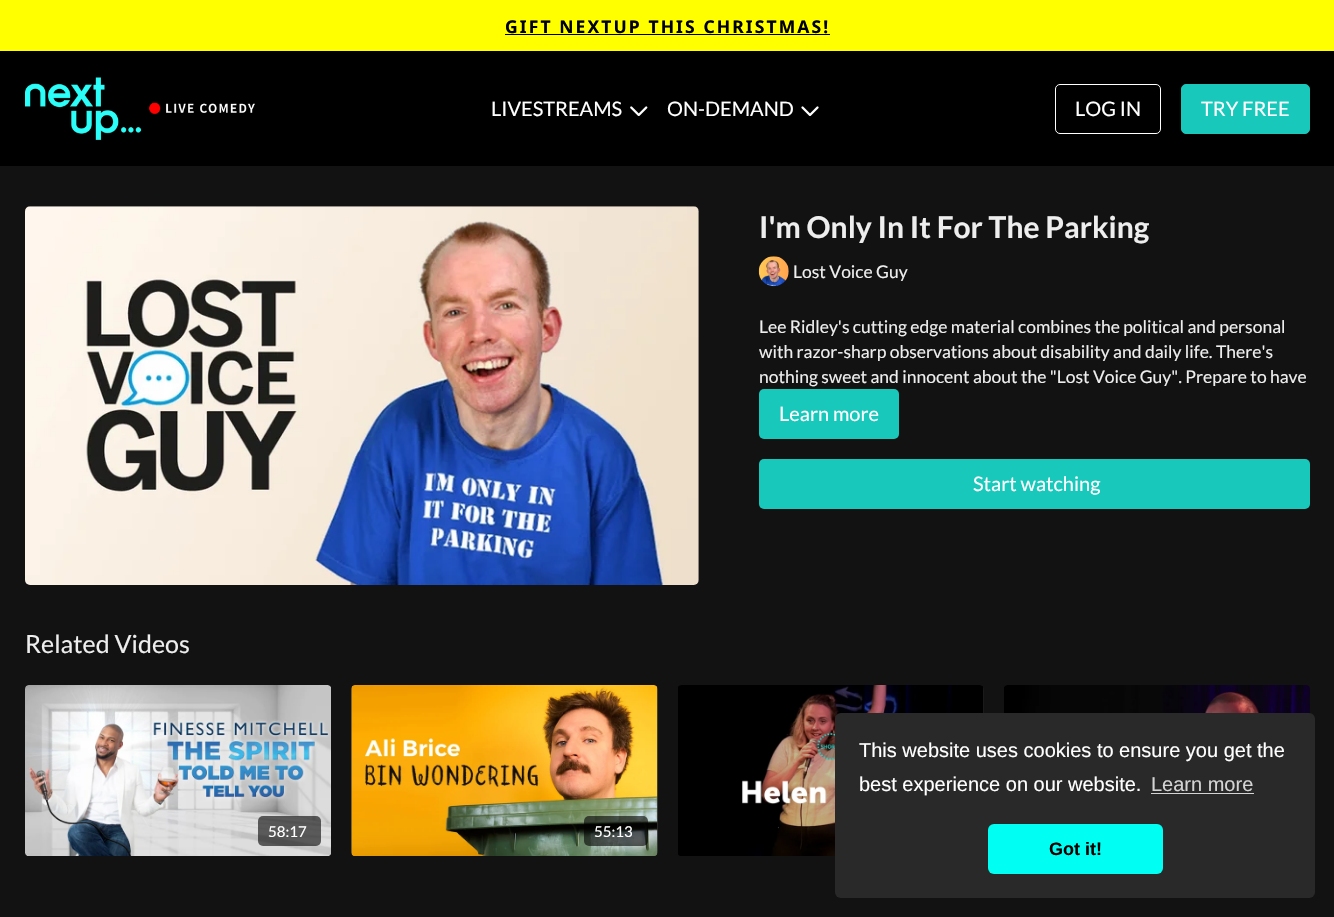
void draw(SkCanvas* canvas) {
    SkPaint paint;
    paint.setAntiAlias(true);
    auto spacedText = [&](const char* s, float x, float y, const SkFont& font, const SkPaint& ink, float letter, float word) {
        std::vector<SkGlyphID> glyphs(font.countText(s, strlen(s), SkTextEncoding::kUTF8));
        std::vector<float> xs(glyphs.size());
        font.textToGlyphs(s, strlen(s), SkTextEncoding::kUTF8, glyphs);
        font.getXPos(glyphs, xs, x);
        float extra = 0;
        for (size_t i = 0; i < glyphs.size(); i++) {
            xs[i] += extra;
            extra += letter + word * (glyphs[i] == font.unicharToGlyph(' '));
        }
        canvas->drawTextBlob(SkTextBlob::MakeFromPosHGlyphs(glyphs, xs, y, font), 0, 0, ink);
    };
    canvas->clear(0xFF121212);
    paint.setColor(0xFFFFFF00);
    canvas->drawRect(SkRect::MakeXYWH(0, 0, 1334, 51), paint);
    SkFont font1(fontMgr->matchFamilyStyle("Noto Sans", SkFontStyle::Bold()), 17.5f);
    font1.setSubpixel(true);
    paint.setColor(0xFF000000);
    spacedText("GIFT NEXTUP THIS CHRISTMAS!", 505, 33, font1, paint, 2.1f, 0);
    canvas->drawRect(SkRect::MakeXYWH(505, 34, 325, 1), paint);
    canvas->drawRect(SkRect::MakeXYWH(0, 51, 1334, 115), paint);
    canvas->drawImageRect(SkImages::DeferredFromEncodedData(SkData::MakeFromFileName("img1.png")), SkRect::MakeXYWH(25, 77, 230, 63), SkSamplingOptions());
    SkFont font2(fontMgr->matchFamilyStyle("Lato", SkFontStyle::Normal()), 20);
    font2.setSubpixel(true);
    paint.setColor(0xFFFFFFFF);
    canvas->drawString("LIVESTREAMS", 491, 116, font2, paint);
    canvas->drawImageRect(SkImages::DeferredFromEncodedData(SkData::MakeFromFileName("img2.png")), SkRect::MakeXYWH(630, 106, 18, 10), SkSamplingOptions());
    canvas->drawString("ON-DEMAND", 667, 116, font2, paint);
    canvas->drawImageRect(SkImages::DeferredFromEncodedData(SkData::MakeFromFileName("img3.png")), SkRect::MakeXYWH(801, 106, 18, 10), SkSamplingOptions());
    paint.setStyle(SkPaint::kStroke_Style);
    paint.setStrokeWidth(1);
    canvas->drawRoundRect(SkRect::MakeXYWH(1055.5f, 84.5f, 105, 49), 4.5f, 4.5f, paint);
    paint.setStyle(SkPaint::kFill_Style);
    canvas->drawString("LOG IN", 1075, 116, font2, paint);
    paint.setColor(0xFF17C8BB);
    canvas->drawRoundRect(SkRect::MakeXYWH(1181.5f, 84.5f, 128, 49), 4.5f, 4.5f, paint);
    paint.setStyle(SkPaint::kStroke_Style);
    canvas->drawRoundRect(SkRect::MakeXYWH(1181.5f, 84.5f, 128, 49), 4.5f, 4.5f, paint);
    paint.setStyle(SkPaint::kFill_Style);
    paint.setColor(0xFFFFFFFF);
    canvas->drawString("TRY FREE", 1201, 116, font2, paint);
    canvas->drawImageRect(SkImages::DeferredFromEncodedData(SkData::MakeFromFileName("img4.png")), SkRect::MakeXYWH(25, 206, 674, 379), SkSamplingOptions());
    SkFont font3(fontMgr->matchFamilyStyle("Lato", SkFontStyle::Bold()), 30);
    font3.setSubpixel(true);
    paint.setColor(0xFFEEEEEE);
    canvas->drawString("I'm Only In It For The Parking", 759, 238, font3, paint);
    canvas->drawImageRect(SkImages::DeferredFromEncodedData(SkData::MakeFromFileName("img5.png")), SkRect::MakeXYWH(758, 256, 31, 31), SkSamplingOptions());
    SkFont font4(fontMgr->matchFamilyStyle("Lato", SkFontStyle::Normal()), 17.5f);
    font4.setSubpixel(true);
    canvas->drawString("Lost Voice Guy", 793, 278, font4, paint);
    canvas->drawString("Lee Ridley's cutting edge material combines the political and personal", 759, 333, font4, paint);
    canvas->drawString("with razor-sharp observations about disability and daily life. There's", 759, 358, font4, paint);
    canvas->drawString("nothing sweet and innocent about the \"Lost Voice Guy\". Prepare to have", 759, 383, font4, paint);
    paint.setColor(0xFF17C8BB);
    canvas->drawRoundRect(SkRect::MakeXYWH(759, 389, 140, 50), 5, 5, paint);
    paint.setColor(0xFFFFFFFF);
    canvas->drawString("Learn more", 779, 421, font2, paint);
    paint.setColor(0xFF17C8BB);
    canvas->drawRoundRect(SkRect::MakeXYWH(759, 459, 551, 50), 5, 5, paint);
    paint.setColor(0xFFFFFFFF);
    canvas->drawString("Start watching", 973, 491, font2, paint);
    SkFont font5(fontMgr->matchFamilyStyle("Lato", SkFontStyle::Normal()), 25);
    font5.setSubpixel(true);
    paint.setColor(0xFFEEEEEE);
    canvas->drawString("Related Videos", 25, 653, font5, paint);
    {
        const SkColor colors[] = {0xFF313131, 0xFF2E2E2E, 0xFF2C2C2C};
        const float stops[] = {0.08f, 0.18f, 0.33f};
        const SkPoint ends[] = {{678, 771}, {984, 771}};
        paint.setShader(SkGradientShader::MakeLinear(ends, colors, stops, 3, SkTileMode::kClamp));
        paint.setAlpha(255);
    }
    canvas->drawRoundRect(SkRect::MakeXYWH(678, 685, 306, 171), 5, 5, paint);
    canvas->drawImageRect(SkImages::DeferredFromEncodedData(SkData::MakeFromFileName("img6.png")), SkRect::MakeXYWH(678, 685, 306, 171), SkSamplingOptions());
    canvas->drawImageRect(SkImages::DeferredFromEncodedData(SkData::MakeFromFileName("img7.png")), SkRect::MakeXYWH(1004, 685, 306, 29), SkSamplingOptions());
    canvas->drawImageRect(SkImages::DeferredFromEncodedData(SkData::MakeFromFileName("img8.png")), SkRect::MakeXYWH(25, 685, 306, 171), SkSamplingOptions());
    paint.setShader(nullptr);
    paint.setColor(0x99000000);
    canvas->drawRoundRect(SkRect::MakeXYWH(258, 816, 63, 30), 5, 5, paint);
    SkFont font6(fontMgr->matchFamilyStyle("Lato", SkFontStyle::Normal()), 15);
    font6.setSubpixel(true);
    paint.setColor(0xFFFFFFFF);
    canvas->drawString("58:17", 268, 837, font6, paint);
    {
        const SkColor colors[] = {0xFF313131, 0xFF2E2E2E, 0xFF2C2C2C};
        const float stops[] = {0.08f, 0.18f, 0.33f};
        const SkPoint ends[] = {{351, 771}, {658, 771}};
        paint.setShader(SkGradientShader::MakeLinear(ends, colors, stops, 3, SkTileMode::kClamp));
        paint.setAlpha(255);
    }
    canvas->drawRoundRect(SkRect::MakeXYWH(351, 685, 307, 171), 5, 5, paint);
    canvas->drawImageRect(SkImages::DeferredFromEncodedData(SkData::MakeFromFileName("img9.png")), SkRect::MakeXYWH(351, 685, 307, 171), SkSamplingOptions());
    paint.setShader(nullptr);
    paint.setColor(0x99000000);
    canvas->drawRoundRect(SkRect::MakeXYWH(584, 816, 64, 30), 5, 5, paint);
    paint.setColor(0xFFFFFFFF);
    canvas->drawString("55:13", 594, 837, font6, paint);
    paint.setColor(0xFF292929);
    canvas->drawRoundRect(SkRect::MakeXYWH(835, 713, 480, 185), 6, 6, paint);
    SkFont font7(fontMgr->matchFamilyStyle("Liberation Sans", SkFontStyle::Normal()), 20);
    font7.setSubpixel(true);
    paint.setColor(0xFFFFFFFF);
    canvas->drawString("This website uses cookies to ensure you get the", 859, 757, font7, paint);
    canvas->drawString("best experience on our website.", 859, 791, font7, paint);
    paint.setColor(0xFFD4D4D4);
    canvas->drawString("Learn more", 1151, 791, font7, paint);
    canvas->drawRect(SkRect::MakeXYWH(1151, 793, 103, 1), paint);
    paint.setColor(0xFF00FFF2);
    canvas->drawRoundRect(SkRect::MakeXYWH(988, 824, 175, 50), 6, 6, paint);
    SkFont font8(fontMgr->matchFamilyStyle("Liberation Sans", SkFontStyle::Bold()), 18);
    font8.setSubpixel(true);
    paint.setColor(0xFF000000);
    canvas->drawString("Got it!", 1049, 855, font8, paint);
}
